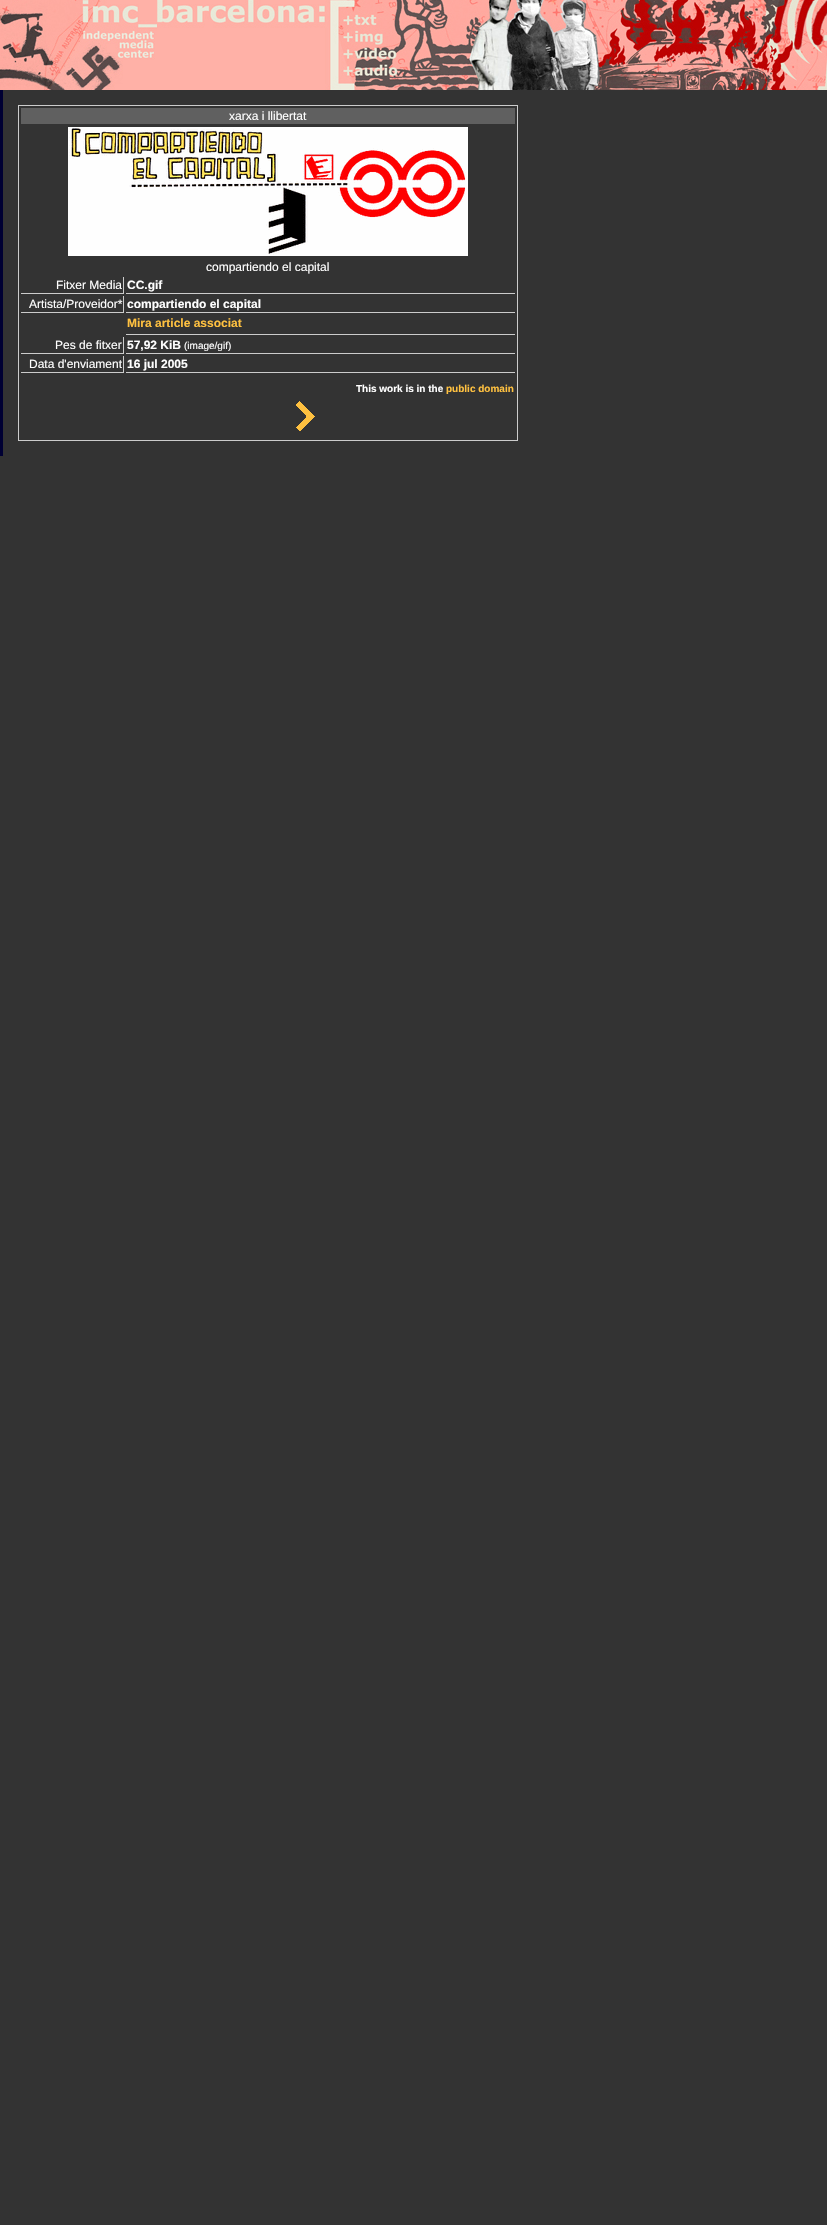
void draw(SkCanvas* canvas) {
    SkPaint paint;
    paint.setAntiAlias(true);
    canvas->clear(0xFF333333);
    canvas->drawImageRect(SkImages::DeferredFromEncodedData(SkData::MakeFromFileName("img1.png")), SkRect::MakeXYWH(0, 0, 157, 90), SkSamplingOptions());
    canvas->drawImageRect(SkImages::DeferredFromEncodedData(SkData::MakeFromFileName("img2.png")), SkRect::MakeXYWH(157, 0, 670, 90), SkSamplingOptions());
    paint.setColor(0xFF000033);
    canvas->drawRect(SkRect::MakeXYWH(0, 90, 3, 366), paint);
    paint.setStyle(SkPaint::kStroke_Style);
    paint.setStrokeWidth(1);
    paint.setColor(0xFFCCCCCC);
    canvas->drawRect(SkRect::MakeXYWH(18.5f, 105.5f, 499, 335), paint);
    paint.setStyle(SkPaint::kFill_Style);
    paint.setColor(0xFF606060);
    canvas->drawRect(SkRect::MakeXYWH(21, 108, 494, 16), paint);
    SkFont font1(fontMgr->matchFamilyStyle("Liberation Sans", SkFontStyle::Normal()), 12);
    font1.setSubpixel(true);
    paint.setColor(0xFFFFFFFF);
    canvas->drawString("xarxa i llibertat", 229, 120, font1, paint);
    canvas->drawImageRect(SkImages::DeferredFromEncodedData(SkData::MakeFromFileName("img3.png")), SkRect::MakeXYWH(68, 127, 400, 129), SkSamplingOptions());
    canvas->drawString("compartiendo el capital", 206, 271, font1, paint);
    paint.setColor(0xFFCCCCCC);
    canvas->drawRect(SkRect::MakeXYWH(123, 277, 1, 17), paint);
    canvas->drawRect(SkRect::MakeXYWH(21, 293, 103, 1), paint);
    paint.setColor(0xFFFFFFFF);
    canvas->drawString("Fitxer Media", 56, 289, font1, paint);
    paint.setColor(0xFFCCCCCC);
    canvas->drawRect(SkRect::MakeXYWH(126, 293, 389, 1), paint);
    SkFont font2(fontMgr->matchFamilyStyle("Liberation Sans", SkFontStyle::Bold()), 12);
    font2.setSubpixel(true);
    paint.setColor(0xFFFFFFFF);
    canvas->drawString("CC.gif", 127, 289, font2, paint);
    paint.setColor(0xFFCCCCCC);
    canvas->drawRect(SkRect::MakeXYWH(123, 296, 1, 17), paint);
    canvas->drawRect(SkRect::MakeXYWH(21, 312, 103, 1), paint);
    paint.setColor(0xFFFFFFFF);
    canvas->drawString("Artista/Proveidor*", 29, 308, font1, paint);
    paint.setColor(0xFFCCCCCC);
    canvas->drawRect(SkRect::MakeXYWH(126, 312, 389, 1), paint);
    paint.setColor(0xFFFFFFFF);
    canvas->drawString("compartiendo el capital", 127, 308, font2, paint);
    paint.setColor(0xFFCCCCCC);
    canvas->drawRect(SkRect::MakeXYWH(126, 334, 389, 1), paint);
    paint.setColor(0xFFFFC140);
    canvas->drawString("Mira article associat", 127, 327, font2, paint);
    paint.setColor(0xFFCCCCCC);
    canvas->drawRect(SkRect::MakeXYWH(123, 337, 1, 17), paint);
    canvas->drawRect(SkRect::MakeXYWH(21, 353, 103, 1), paint);
    paint.setColor(0xFFFFFFFF);
    canvas->drawString("Pes de fitxer", 55, 349, font1, paint);
    paint.setColor(0xFFCCCCCC);
    canvas->drawRect(SkRect::MakeXYWH(126, 353, 389, 1), paint);
    paint.setColor(0xFFFFFFFF);
    canvas->drawString("57,92 KiB", 127, 349, font2, paint);
    SkFont font3(fontMgr->matchFamilyStyle("Liberation Sans", SkFontStyle::Normal()), 10);
    font3.setSubpixel(true);
    canvas->drawString("(image/gif)", 184, 349, font3, paint);
    paint.setColor(0xFFCCCCCC);
    canvas->drawRect(SkRect::MakeXYWH(123, 356, 1, 17), paint);
    canvas->drawRect(SkRect::MakeXYWH(21, 372, 103, 1), paint);
    paint.setColor(0xFFFFFFFF);
    canvas->drawString("Data d'enviament", 29, 368, font1, paint);
    paint.setColor(0xFFCCCCCC);
    canvas->drawRect(SkRect::MakeXYWH(126, 372, 389, 1), paint);
    paint.setColor(0xFFFFFFFF);
    canvas->drawString("16 jul 2005", 127, 368, font2, paint);
    SkFont font4(fontMgr->matchFamilyStyle("Liberation Sans", SkFontStyle::Bold()), 10);
    font4.setSubpixel(true);
    canvas->drawString("This work is in the", 356, 392, font4, paint);
    paint.setColor(0xFFFFC140);
    canvas->drawString("public domain", 446, 392, font4, paint);
    canvas->drawImageRect(SkImages::DeferredFromEncodedData(SkData::MakeFromFileName("img4.png")), SkRect::MakeXYWH(296, 401, 19, 30), SkSamplingOptions());
}
